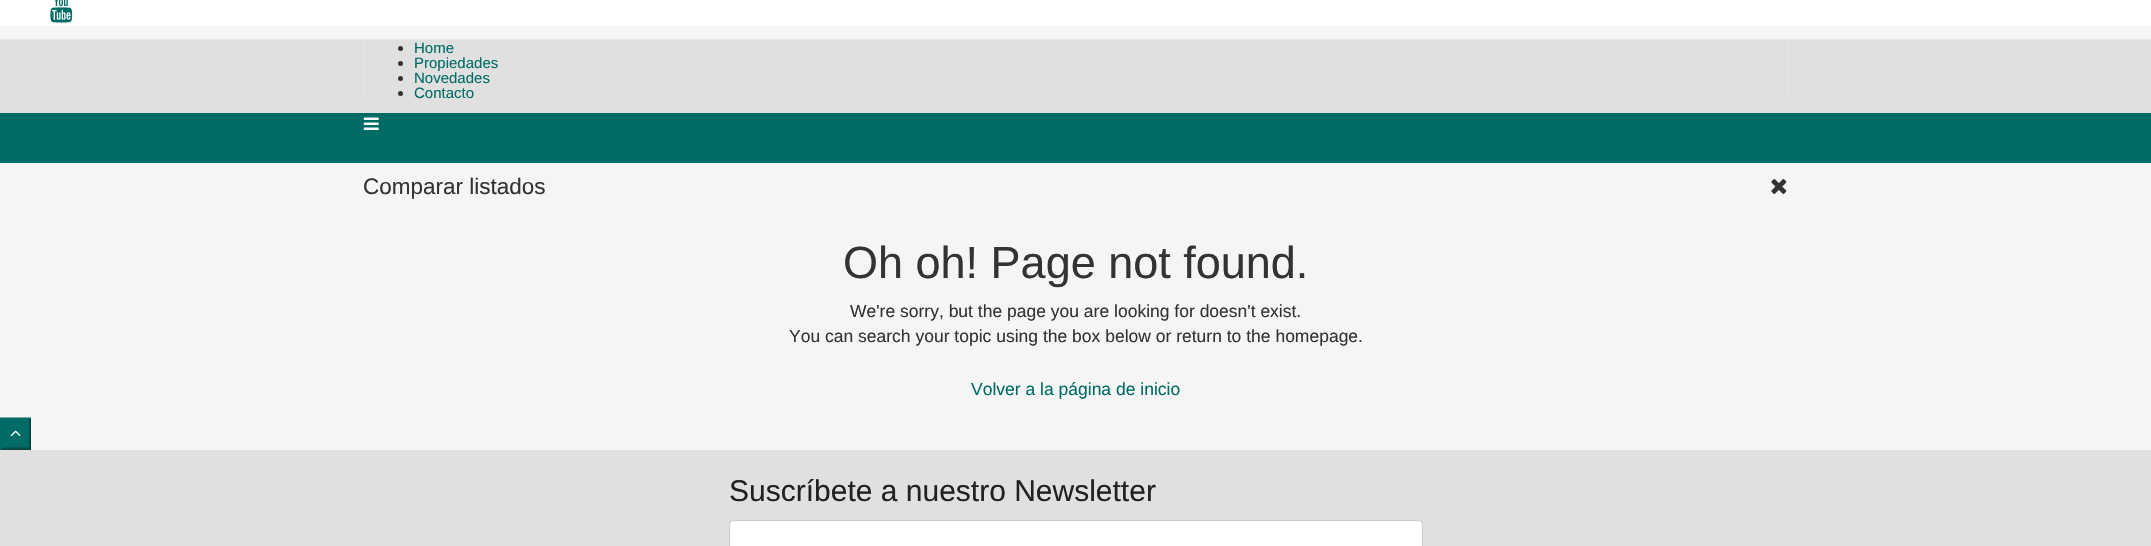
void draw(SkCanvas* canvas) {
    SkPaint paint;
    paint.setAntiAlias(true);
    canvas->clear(0xFFF5F5F5);
    paint.setColor(0xFFFFFFFF);
    canvas->drawRect(SkRect::MakeXYWH(0, 0, 2151, 26), paint);
    canvas->drawImageRect(SkImages::DeferredFromEncodedData(SkData::MakeFromFileName("img1.png")), SkRect::MakeXYWH(50, 0, 23, 23), SkSamplingOptions());
    paint.setColor(0xFFE0E0E0);
    canvas->drawRect(SkRect::MakeXYWH(0, 40, 2151, 73), paint);
    paint.setColor(0xFFE6E6E6);
    canvas->drawRect(SkRect::MakeXYWH(0, 39, 2151, 1), paint);
    canvas->drawRect(SkRect::MakeXYWH(364, 40, 1, 60), paint);
    canvas->drawRect(SkRect::MakeXYWH(1788, 40, 1, 60), paint);
    paint.setColor(0xFF333333);
    canvas->drawCircle(400.5f, 48.5f, 2.5f, paint);
    SkFont font1(fontMgr->matchFamilyStyle("Liberation Sans", SkFontStyle::Normal()), 15);
    font1.setSubpixel(true);
    paint.setColor(0xFF006C65);
    canvas->drawString("Home", 414, 53, font1, paint);
    paint.setColor(0xFF333333);
    canvas->drawCircle(400.5f, 63.5f, 2.5f, paint);
    paint.setColor(0xFF006C65);
    canvas->drawString("Propiedades", 414, 68, font1, paint);
    paint.setColor(0xFF333333);
    canvas->drawCircle(400.5f, 78.5f, 2.5f, paint);
    paint.setColor(0xFF006C65);
    canvas->drawString("Novedades", 414, 83, font1, paint);
    paint.setColor(0xFF333333);
    canvas->drawCircle(400.5f, 93.5f, 2.5f, paint);
    paint.setColor(0xFF006C65);
    canvas->drawString("Contacto", 414, 98, font1, paint);
    canvas->drawRect(SkRect::MakeXYWH(0, 113, 2151, 50), paint);
    canvas->drawImageRect(SkImages::DeferredFromEncodedData(SkData::MakeFromFileName("img2.png")), SkRect::MakeXYWH(363, 117, 16, 13), SkSamplingOptions());
    SkFont font2(fontMgr->matchFamilyStyle("Liberation Sans", SkFontStyle::Normal()), 22.5f);
    font2.setSubpixel(true);
    paint.setColor(0xFF333333);
    canvas->drawString("Comparar listados", 363, 194, font2, paint);
    canvas->drawImageRect(SkImages::DeferredFromEncodedData(SkData::MakeFromFileName("img3.png")), SkRect::MakeXYWH(1771, 179, 16, 15), SkSamplingOptions());
    SkFont font3(fontMgr->matchFamilyStyle("Liberation Sans", SkFontStyle::Normal()), 45);
    font3.setSubpixel(true);
    canvas->drawString("Oh oh! Page not found.", 843, 278, font3, paint);
    SkFont font4(fontMgr->matchFamilyStyle("Liberation Sans", SkFontStyle::Normal()), 17.5f);
    font4.setSubpixel(true);
    canvas->drawString("We're sorry, but the page you are looking for doesn't exist.", 850, 317, font4, paint);
    canvas->drawString("You can search your topic using the box below or return to the homepage.", 789, 342, font4, paint);
    paint.setColor(0xFF006C65);
    canvas->drawString("Volver a la página de inicio", 971, 395, font4, paint);
    canvas->drawRect(SkRect::MakeXYWH(0, 418, 31, 32), paint);
    canvas->drawPath(SkPathBuilder().moveTo(0, 417.5f).lineTo(31, 417.5f).lineTo(29, 420).lineTo(2.5f, 420).close().detach(), paint);
    paint.setColor(0xFF004843);
    canvas->drawPath(SkPathBuilder().moveTo(31, 417.5f).lineTo(31, 450).lineTo(29, 447.5f).lineTo(29, 420).close().detach(), paint);
    canvas->drawPath(SkPathBuilder().moveTo(31, 450).lineTo(0, 450).lineTo(2.5f, 447.5f).lineTo(29, 447.5f).close().detach(), paint);
    paint.setColor(0xFF006C65);
    canvas->drawPath(SkPathBuilder().moveTo(0, 450).lineTo(0, 417.5f).lineTo(2.5f, 420).lineTo(2.5f, 447.5f).close().detach(), paint);
    canvas->drawImageRect(SkImages::DeferredFromEncodedData(SkData::MakeFromFileName("img4.png")), SkRect::MakeXYWH(10, 430, 11, 7), SkSamplingOptions());
    paint.setColor(0xFFE0E0E0);
    canvas->drawRect(SkRect::MakeXYWH(0, 450, 2151, 96), paint);
    SkFont font5(fontMgr->matchFamilyStyle("Liberation Sans", SkFontStyle::Normal()), 30);
    font5.setSubpixel(true);
    paint.setColor(0xFF212121);
    canvas->drawString("Suscríbete a nuestro Newsletter", 729, 501, font5, paint);
    paint.setColor(0xFFFFFFFF);
    canvas->drawRoundRect(SkRect::MakeXYWH(729.5f, 520.5f, 693, 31), 4.5f, 4.5f, paint);
    paint.setStyle(SkPaint::kStroke_Style);
    paint.setStrokeWidth(1);
    paint.setColor(0xFFCCCCCC);
    canvas->drawRoundRect(SkRect::MakeXYWH(729.5f, 520.5f, 693, 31), 4.5f, 4.5f, paint);
}
